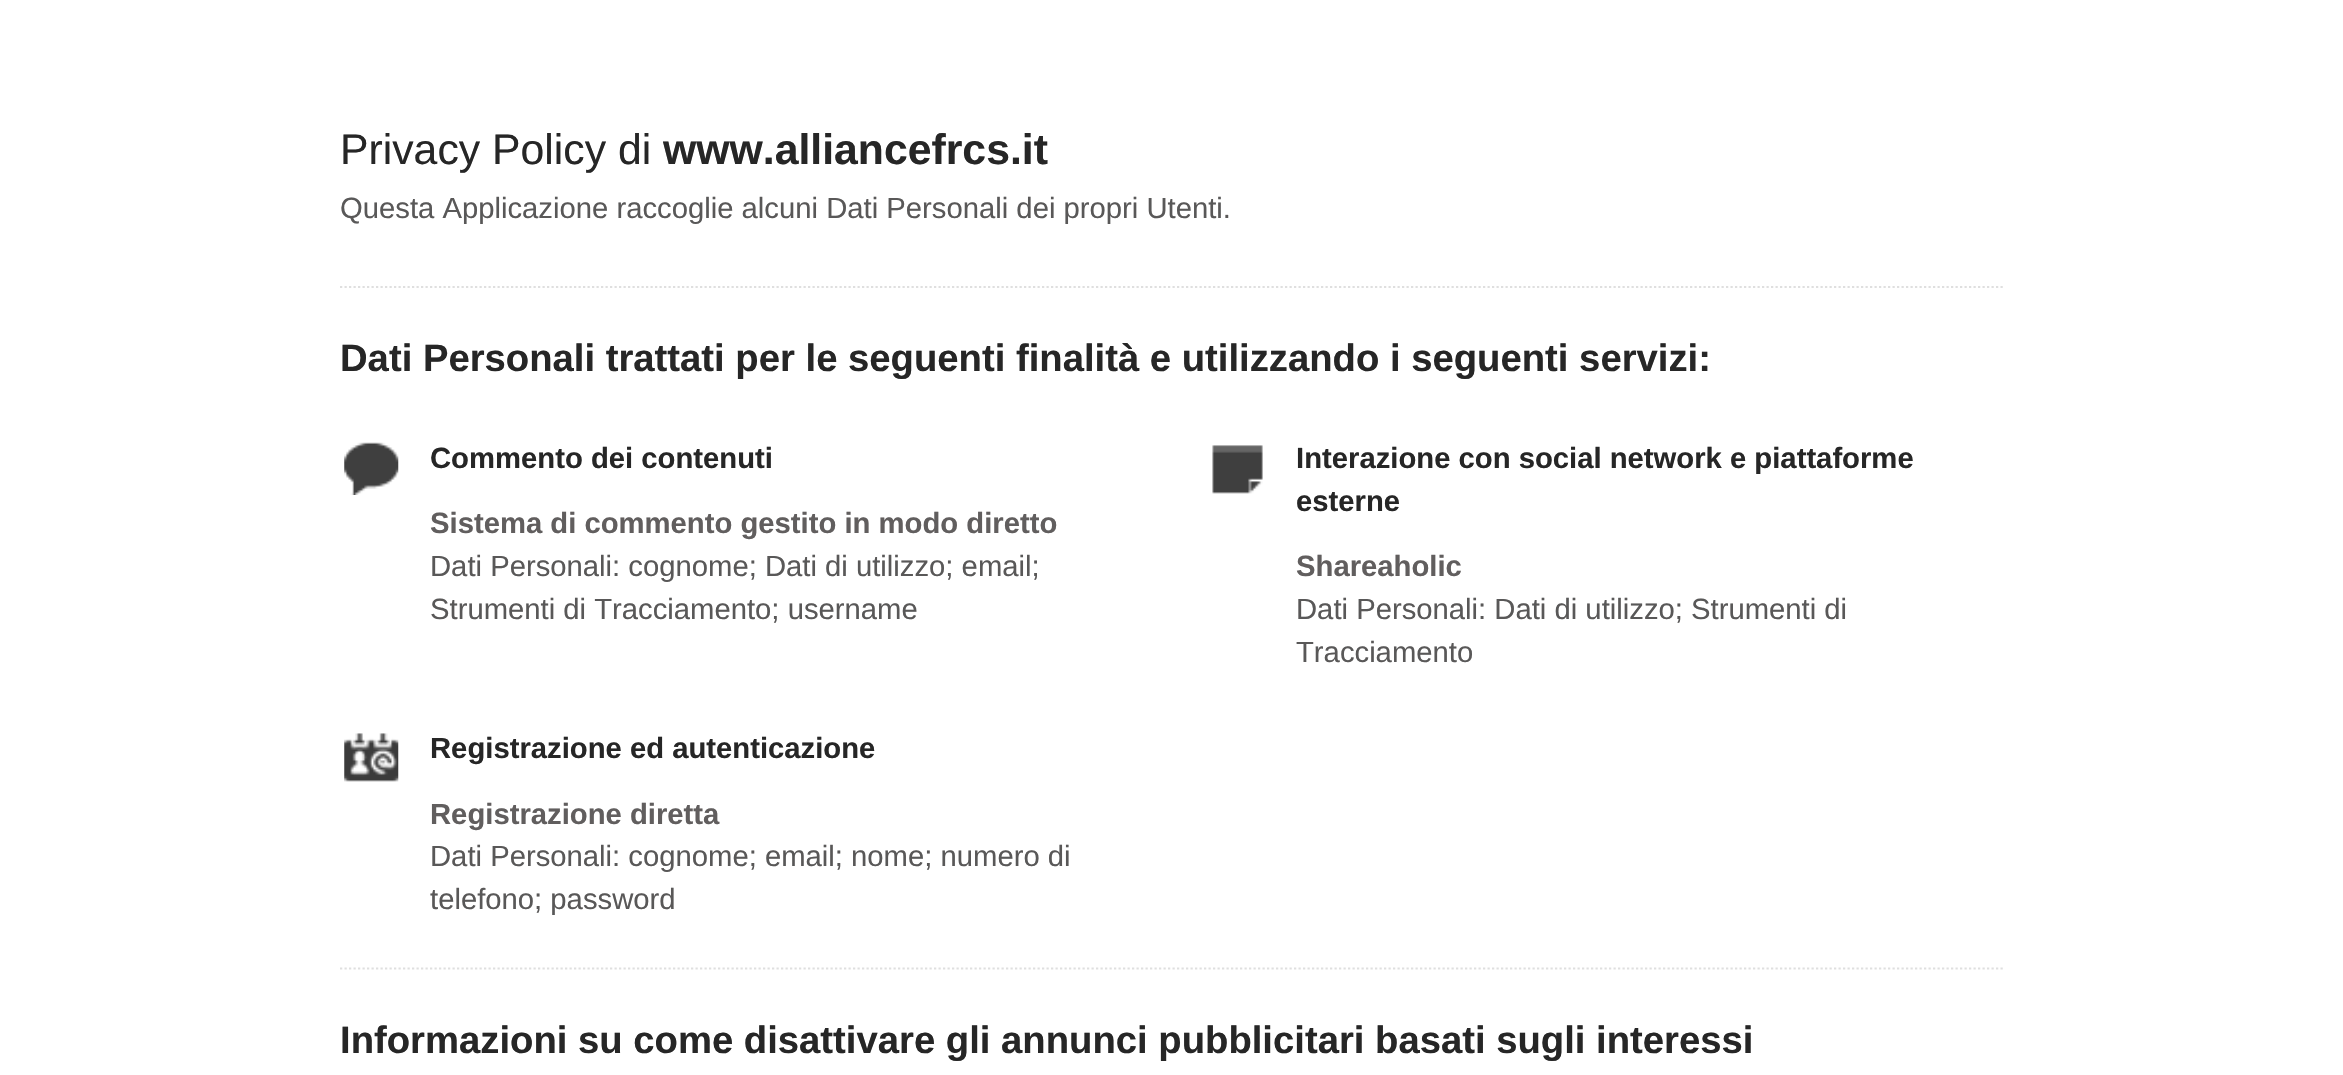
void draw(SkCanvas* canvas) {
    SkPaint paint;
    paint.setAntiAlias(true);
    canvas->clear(0xFFFFFFFF);
    paint.setStyle(SkPaint::kStroke_Style);
    paint.setStrokeWidth(2.2f);
    paint.setColor(0xFFDFDFDF);
    paint.setPathEffect(SkDashPathEffect::Make({{2.25f, 2.25f}}, 0));
    canvas->drawPath(SkPathBuilder().moveTo(340, 287).lineTo(2005, 287).detach(), paint);
    paint.setPathEffect(nullptr);
    SkFont font1(fontMgr->matchFamilyStyle("Liberation Sans", SkFontStyle::Normal()), 42.75f);
    font1.setSubpixel(true);
    paint.setStyle(SkPaint::kFill_Style);
    paint.setColor(0xFF262626);
    canvas->drawString("Privacy Policy di", 340, 164, font1, paint);
    SkFont font2(fontMgr->matchFamilyStyle("Liberation Sans", SkFontStyle::Bold()), 42.75f);
    font2.setSubpixel(true);
    canvas->drawString("www.alliancefrcs.it", 663, 164, font2, paint);
    SkFont font3(fontMgr->matchFamilyStyle("Liberation Sans", SkFontStyle::Normal()), 29.25f);
    font3.setSubpixel(true);
    paint.setColor(0xFF595858);
    canvas->drawString("Questa Applicazione raccoglie alcuni Dati Personali dei propri Utenti.", 340, 218, font3, paint);
    SkFont font4(fontMgr->matchFamilyStyle("Liberation Sans", SkFontStyle::Bold()), 38.25f);
    font4.setSubpixel(true);
    paint.setColor(0xFF262626);
    canvas->drawString("Dati Personali trattati per le seguenti finalità e utilizzando i seguenti servizi:", 340, 371, font4, paint);
    paint.setStyle(SkPaint::kStroke_Style);
    paint.setColor(0xFFDFDFDF);
    paint.setPathEffect(SkDashPathEffect::Make({{2.25f, 2.25f}}, 0));
    canvas->drawPath(SkPathBuilder().moveTo(340, 968.5f).lineTo(2005, 968.5f).detach(), paint);
    paint.setPathEffect(nullptr);
    canvas->drawImageRect(SkImages::DeferredFromEncodedData(SkData::MakeFromFileName("img1.png")), SkRect::MakeXYWH(344, 442, 55, 53), SkSamplingOptions());
    SkFont font5(fontMgr->matchFamilyStyle("Liberation Sans", SkFontStyle::Bold()), 29.25f);
    font5.setSubpixel(true);
    paint.setStyle(SkPaint::kFill_Style);
    paint.setColor(0xFF262626);
    canvas->drawString("Commento dei contenuti", 430, 468, font5, paint);
    paint.setColor(0xFF615E5E);
    canvas->drawString("Sistema di commento gestito in modo diretto", 430, 533, font5, paint);
    paint.setColor(0xFF595858);
    canvas->drawString("Dati Personali: cognome; Dati di utilizzo; email;", 430, 576, font3, paint);
    canvas->drawString("Strumenti di Tracciamento; username", 430, 619, font3, paint);
    canvas->drawImageRect(SkImages::DeferredFromEncodedData(SkData::MakeFromFileName("img2.png")), SkRect::MakeXYWH(1212, 445, 51, 49), SkSamplingOptions());
    paint.setColor(0xFF262626);
    canvas->drawString("Interazione con social network e piattaforme", 1296, 468, font5, paint);
    canvas->drawString("esterne", 1296, 511, font5, paint);
    paint.setColor(0xFF615E5E);
    canvas->drawString("Shareaholic", 1296, 576, font5, paint);
    paint.setColor(0xFF595858);
    canvas->drawString("Dati Personali: Dati di utilizzo; Strumenti di", 1296, 619, font3, paint);
    canvas->drawString("Tracciamento", 1296, 662, font3, paint);
    canvas->drawImageRect(SkImages::DeferredFromEncodedData(SkData::MakeFromFileName("img3.png")), SkRect::MakeXYWH(344, 733, 55, 49), SkSamplingOptions());
    paint.setColor(0xFF262626);
    canvas->drawString("Registrazione ed autenticazione", 430, 758, font5, paint);
    paint.setColor(0xFF615E5E);
    canvas->drawString("Registrazione diretta", 430, 824, font5, paint);
    paint.setColor(0xFF595858);
    canvas->drawString("Dati Personali: cognome; email; nome; numero di", 430, 866, font3, paint);
    canvas->drawString("telefono; password", 430, 909, font3, paint);
    paint.setColor(0xFF262626);
    canvas->drawString("Informazioni su come disattivare gli annunci pubblicitari basati sugli interessi", 340, 1053, font4, paint);
}
